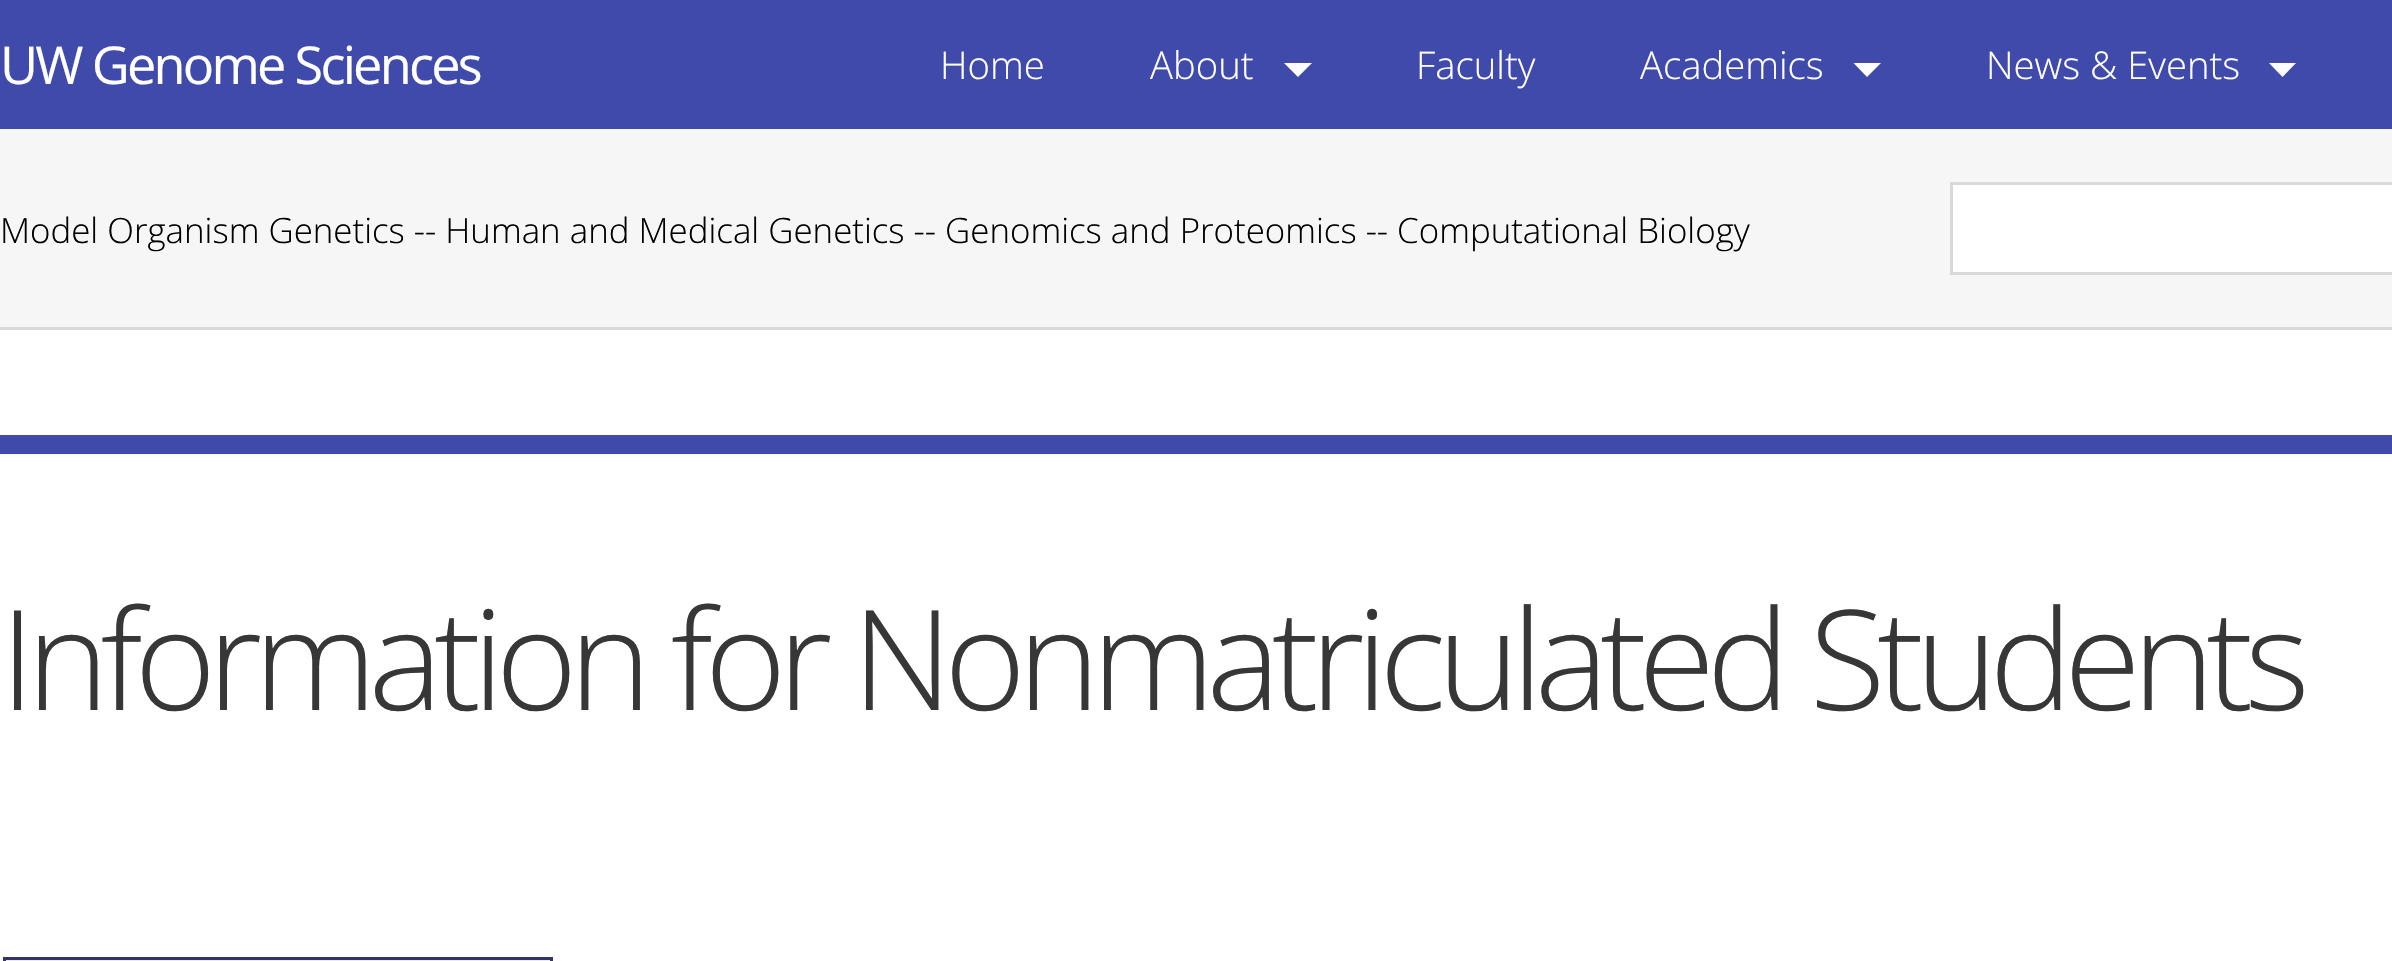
void draw(SkCanvas* canvas) {
    SkPaint paint;
    paint.setAntiAlias(true);
    auto spacedText = [&](const char* s, float x, float y, const SkFont& font, const SkPaint& ink, float letter, float word) {
        std::vector<SkGlyphID> glyphs(font.countText(s, strlen(s), SkTextEncoding::kUTF8));
        std::vector<float> xs(glyphs.size());
        font.textToGlyphs(s, strlen(s), SkTextEncoding::kUTF8, glyphs);
        font.getXPos(glyphs, xs, x);
        float extra = 0;
        for (size_t i = 0; i < glyphs.size(); i++) {
            xs[i] += extra;
            extra += letter + word * (glyphs[i] == font.unicharToGlyph(' '));
        }
        canvas->drawTextBlob(SkTextBlob::MakeFromPosHGlyphs(glyphs, xs, y, font), 0, 0, ink);
    };
    canvas->clear(0xFFFFFFFF);
    paint.setColor(0xFF3F4AAA);
    canvas->drawRect(SkRect::MakeXYWH(0, 0, 2392, 129), paint);
    SkFont font1(fontMgr->matchFamilyStyle("Open Sans", SkFontStyle::Normal()), 52.25f);
    font1.setSubpixel(true);
    paint.setColor(0xFFFFFFFF);
    spacedText("UW Genome Sciences", 0, 84, font1, paint, -2.75f, 0);
    SkFont font2(fontMgr->matchFamilyStyle("Open Sans", SkFontStyle(300, SkFontStyle::kNormal_Width, SkFontStyle::kUpright_Slant)), 38.25f);
    font2.setSubpixel(true);
    canvas->drawString("Home", 940, 79, font2, paint);
    canvas->drawString("About", 1150, 79, font2, paint);
    canvas->drawPath(SkPathBuilder().moveTo(1284, 63).lineTo(1312, 63).lineTo(1298, 77).close().detach(), paint);
    canvas->drawString("Faculty", 1416, 79, font2, paint);
    canvas->drawString("Academics", 1640, 79, font2, paint);
    canvas->drawPath(SkPathBuilder().moveTo(1853.5f, 63).lineTo(1881, 63).lineTo(1867, 77).close().detach(), paint);
    canvas->drawString("News & Events", 1986, 79, font2, paint);
    canvas->drawPath(SkPathBuilder().moveTo(2269, 63).lineTo(2296, 63).lineTo(2282.5f, 77).close().detach(), paint);
    paint.setColor(0xFFF6F6F6);
    canvas->drawRect(SkRect::MakeXYWH(0, 129, 2392, 198), paint);
    paint.setColor(0xFFD9D9D9);
    canvas->drawRect(SkRect::MakeXYWH(0, 327, 2392, 3), paint);
    SkFont font3(fontMgr->matchFamilyStyle("Open Sans", SkFontStyle(300, SkFontStyle::kNormal_Width, SkFontStyle::kUpright_Slant)), 34.83f);
    font3.setSubpixel(true);
    paint.setColor(0xFF000000);
    canvas->drawString("Model Organism Genetics -- Human and Medical Genetics -- Genomics and Proteomics -- Computational Biology", 0, 243, font3, paint);
    paint.setColor(0xFFFFFFFF);
    canvas->drawRect(SkRect::MakeXYWH(1951.5f, 183.5f, 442, 90), paint);
    paint.setStyle(SkPaint::kStroke_Style);
    paint.setStrokeWidth(3);
    paint.setColor(0xFFD9D9D9);
    canvas->drawRect(SkRect::MakeXYWH(1951.5f, 183.5f, 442, 90), paint);
    paint.setStyle(SkPaint::kFill_Style);
    paint.setColor(0xFF3F4AAA);
    canvas->drawRect(SkRect::MakeXYWH(0, 435, 2392, 19), paint);
    SkFont font4(fontMgr->matchFamilyStyle("Open Sans", SkFontStyle(300, SkFontStyle::kNormal_Width, SkFontStyle::kUpright_Slant)), 139.3f);
    font4.setSubpixel(true);
    paint.setColor(0xFF373737);
    spacedText("Information for Nonmatriculated Students", 0, 710, font4, paint, -8.25f, 0);
    paint.setColor(0xFFEBEBEB);
    canvas->drawRect(SkRect::MakeXYWH(4.5f, 958.5f, 547, 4), paint);
    paint.setStyle(SkPaint::kStroke_Style);
    paint.setColor(0xFF333366);
    canvas->drawRect(SkRect::MakeXYWH(4.5f, 958.5f, 547, 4), paint);
}
